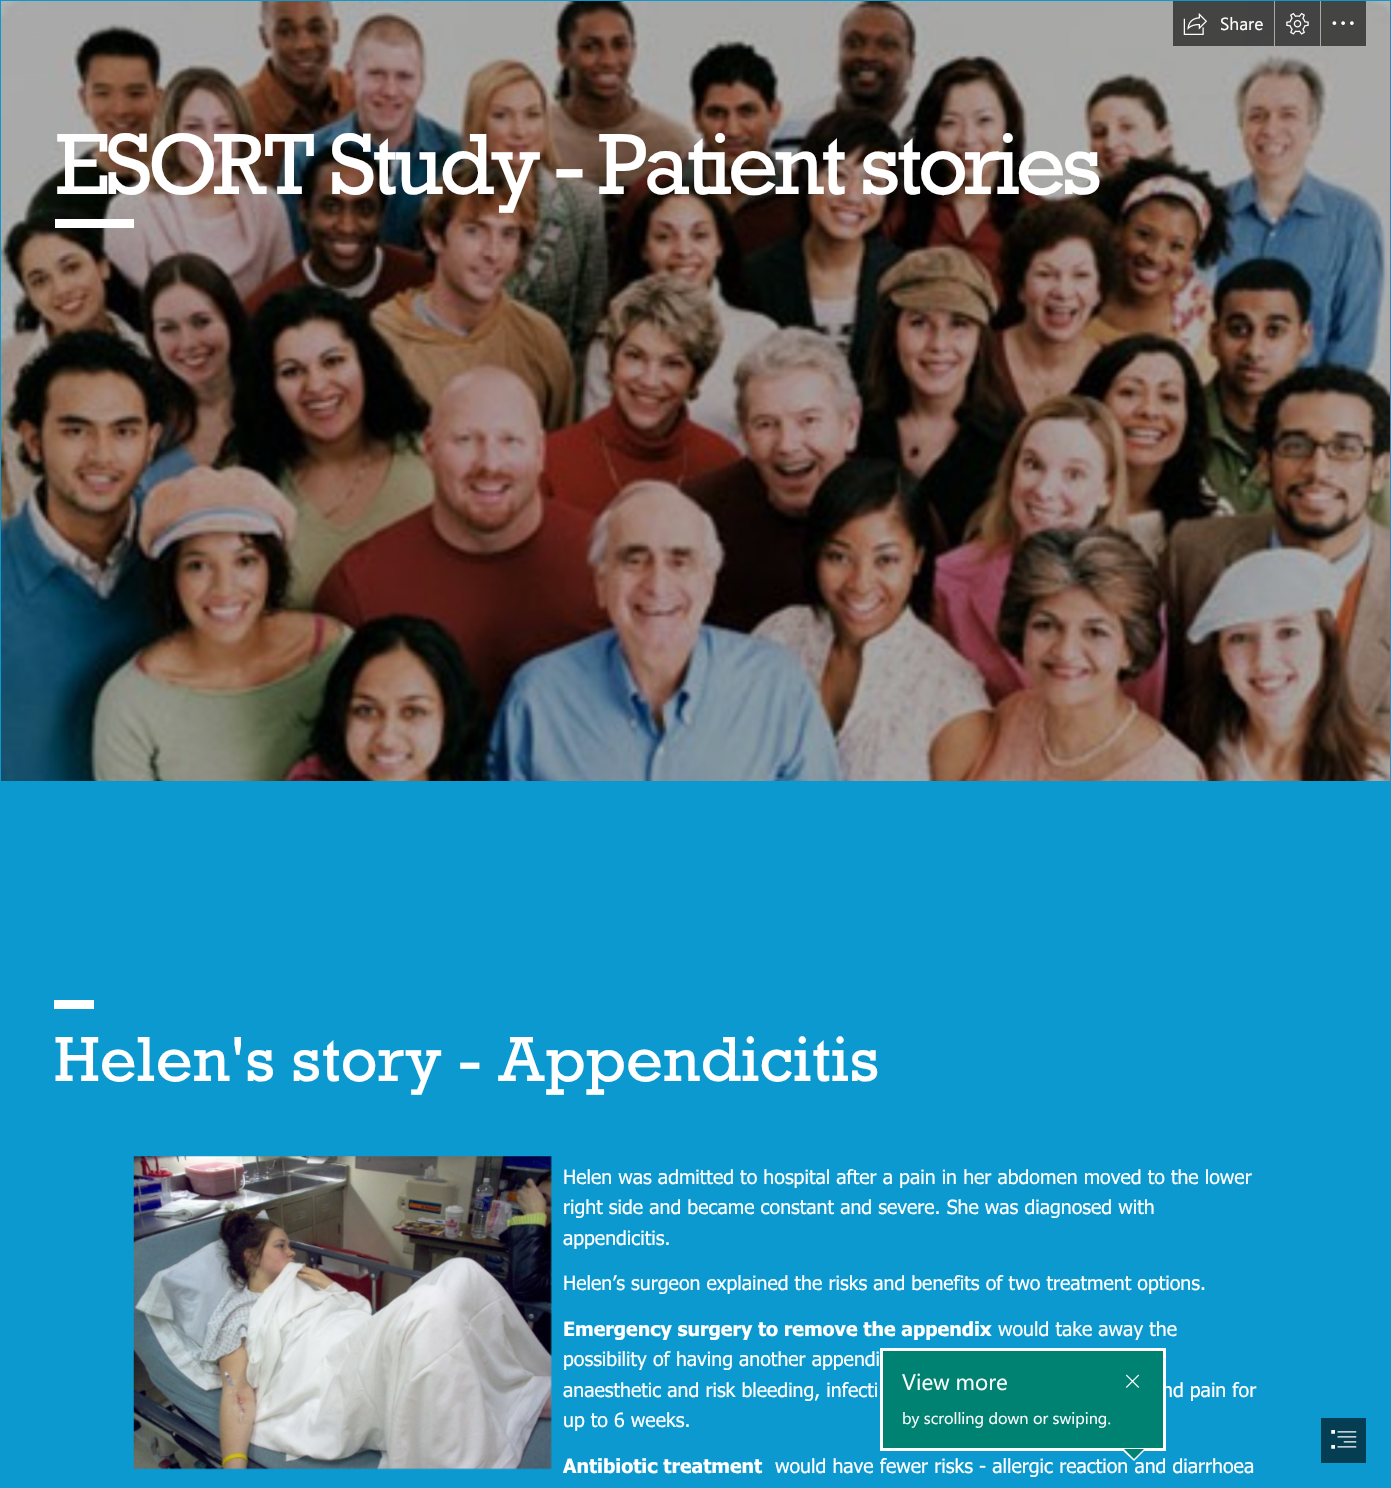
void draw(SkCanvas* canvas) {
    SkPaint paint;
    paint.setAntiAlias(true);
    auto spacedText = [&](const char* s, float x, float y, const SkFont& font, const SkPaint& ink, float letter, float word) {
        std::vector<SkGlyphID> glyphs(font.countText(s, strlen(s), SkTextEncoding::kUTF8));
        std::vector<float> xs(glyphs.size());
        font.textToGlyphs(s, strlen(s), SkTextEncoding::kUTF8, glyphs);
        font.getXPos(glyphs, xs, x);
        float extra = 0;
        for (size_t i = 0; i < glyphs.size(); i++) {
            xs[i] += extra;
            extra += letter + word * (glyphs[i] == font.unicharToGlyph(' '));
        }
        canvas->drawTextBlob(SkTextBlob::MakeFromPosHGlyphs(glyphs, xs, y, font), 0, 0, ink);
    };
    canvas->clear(0xFF0C99CF);
    canvas->drawImageRect(SkImages::DeferredFromEncodedData(SkData::MakeFromFileName("img4.png")), SkRect::MakeXYWH(1, 1, 1389, 780), SkSamplingOptions());
    paint.setColor(0x99000000);
    canvas->drawRect(SkRect::MakeXYWH(1173, 1, 101, 45), paint);
    canvas->drawImageRect(SkImages::DeferredFromEncodedData(SkData::MakeFromFileName("img1.png")), SkRect::MakeXYWH(1183, 13, 24, 22), SkSamplingOptions());
    SkFont font1(fontMgr->matchFamilyStyle("Segoe UI", SkFontStyle::Normal()), 17.5f);
    font1.setSubpixel(true);
    paint.setColor(0xFFFFFFFF);
    canvas->drawString("Share", 1220, 30, font1, paint);
    paint.setColor(0xFF434343);
    canvas->drawRect(SkRect::MakeXYWH(1275, 1, 45, 45), paint);
    canvas->drawImageRect(SkImages::DeferredFromEncodedData(SkData::MakeFromFileName("img2.png")), SkRect::MakeXYWH(1286, 12, 23, 23), SkSamplingOptions());
    paint.setColor(0xFF444443);
    canvas->drawRect(SkRect::MakeXYWH(1321, 1, 45, 45), paint);
    canvas->drawImageRect(SkImages::DeferredFromEncodedData(SkData::MakeFromFileName("img3.png")), SkRect::MakeXYWH(1332, 21, 22, 4), SkSamplingOptions());
    SkFont font2(fontMgr->matchFamilyStyle("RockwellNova", SkFontStyle::Normal()), 81.5f);
    font2.setSubpixel(true);
    paint.setColor(0xFFFFFFFF);
    spacedText("ESORT Study - Patient stories", 56, 194, font2, paint, -4.7f, 0);
    canvas->drawRect(SkRect::MakeXYWH(55, 219, 79, 9), paint);
    canvas->drawRect(SkRect::MakeXYWH(54, 1000, 40, 9), paint);
    SkFont font3(fontMgr->matchFamilyStyle("RockwellNova", SkFontStyle::Normal()), 59.75f);
    font3.setSubpixel(true);
    canvas->drawString("Helen's story - Appendicitis", 54, 1081, font3, paint);
    canvas->drawImageRect(SkImages::DeferredFromEncodedData(SkData::MakeFromFileName("img5.png")), SkRect::MakeXYWH(133, 1156, 419, 314), SkSamplingOptions());
    SkFont font4(fontMgr->matchFamilyStyle("Tahoma", SkFontStyle::Normal()), 19.55f);
    font4.setSubpixel(true);
    canvas->drawString("Helen was admitted to hospital after a pain in her abdomen moved to the lower", 563, 1184, font4, paint);
    canvas->drawString("right side and became constant and severe. She was diagnosed with", 563, 1214, font4, paint);
    canvas->drawString("appendicitis.", 563, 1245, font4, paint);
    canvas->drawString("Helen’s surgeon explained the risks and benefits of two treatment options.", 563, 1290, font4, paint);
    SkFont font5(fontMgr->matchFamilyStyle("Tahoma", SkFontStyle::Bold()), 19.55f);
    font5.setSubpixel(true);
    canvas->drawString("Emergency surgery to remove the appendix", 563, 1336, font5, paint);
    canvas->drawString("would take away the", 998, 1336, font4, paint);
    canvas->drawString("possibility of having another appendi", 563, 1366, font4, paint);
    canvas->drawString("anaesthetic and risk bleeding, infecti", 563, 1397, font4, paint);
    canvas->drawString("nd pain for", 1162, 1397, font4, paint);
    canvas->drawString("up to 6 weeks.", 563, 1427, font4, paint);
    canvas->drawString("Antibiotic treatment", 563, 1473, font5, paint);
    canvas->drawString("would have fewer risks - allergic reaction and diarrhoea", 775, 1473, font4, paint);
    paint.setColor(0xFF008272);
    canvas->drawRect(SkRect::MakeXYWH(881.5f, 1349.5f, 283, 100), paint);
    paint.setStyle(SkPaint::kStroke_Style);
    paint.setStrokeWidth(3);
    paint.setColor(0xFFFFFFFF);
    canvas->drawRect(SkRect::MakeXYWH(881.5f, 1349.5f, 283, 100), paint);
    SkFont font6(fontMgr->matchFamilyStyle("Segoe UI", SkFontStyle::Normal()), 22.5f);
    font6.setSubpixel(true);
    paint.setStyle(SkPaint::kFill_Style);
    canvas->drawString("View more", 902, 1390, font6, paint);
    SkFont font7(fontMgr->matchFamilyStyle("Segoe UI", SkFontStyle::Normal()), 16.25f);
    font7.setSubpixel(true);
    canvas->drawString("by scrolling down or swiping.", 902, 1424, font7, paint);
    canvas->drawImageRect(SkImages::DeferredFromEncodedData(SkData::MakeFromFileName("img6.png")), SkRect::MakeXYWH(1125, 1374, 15, 14), SkSamplingOptions());
    canvas->drawPath(SkPathBuilder().moveTo(1121, 1449).lineTo(1146, 1449).lineTo(1134, 1461).close().detach(), paint);
    paint.setColor(0xFF008272);
    canvas->drawPath(SkPathBuilder().moveTo(1124, 1449).lineTo(1144, 1449).lineTo(1134, 1459).close().detach(), paint);
    paint.setColor(0xFF053D53);
    canvas->drawRect(SkRect::MakeXYWH(1321, 1418, 45, 45), paint);
    canvas->drawImageRect(SkImages::DeferredFromEncodedData(SkData::MakeFromFileName("img7.png")), SkRect::MakeXYWH(1331, 1430, 26, 19), SkSamplingOptions());
}
